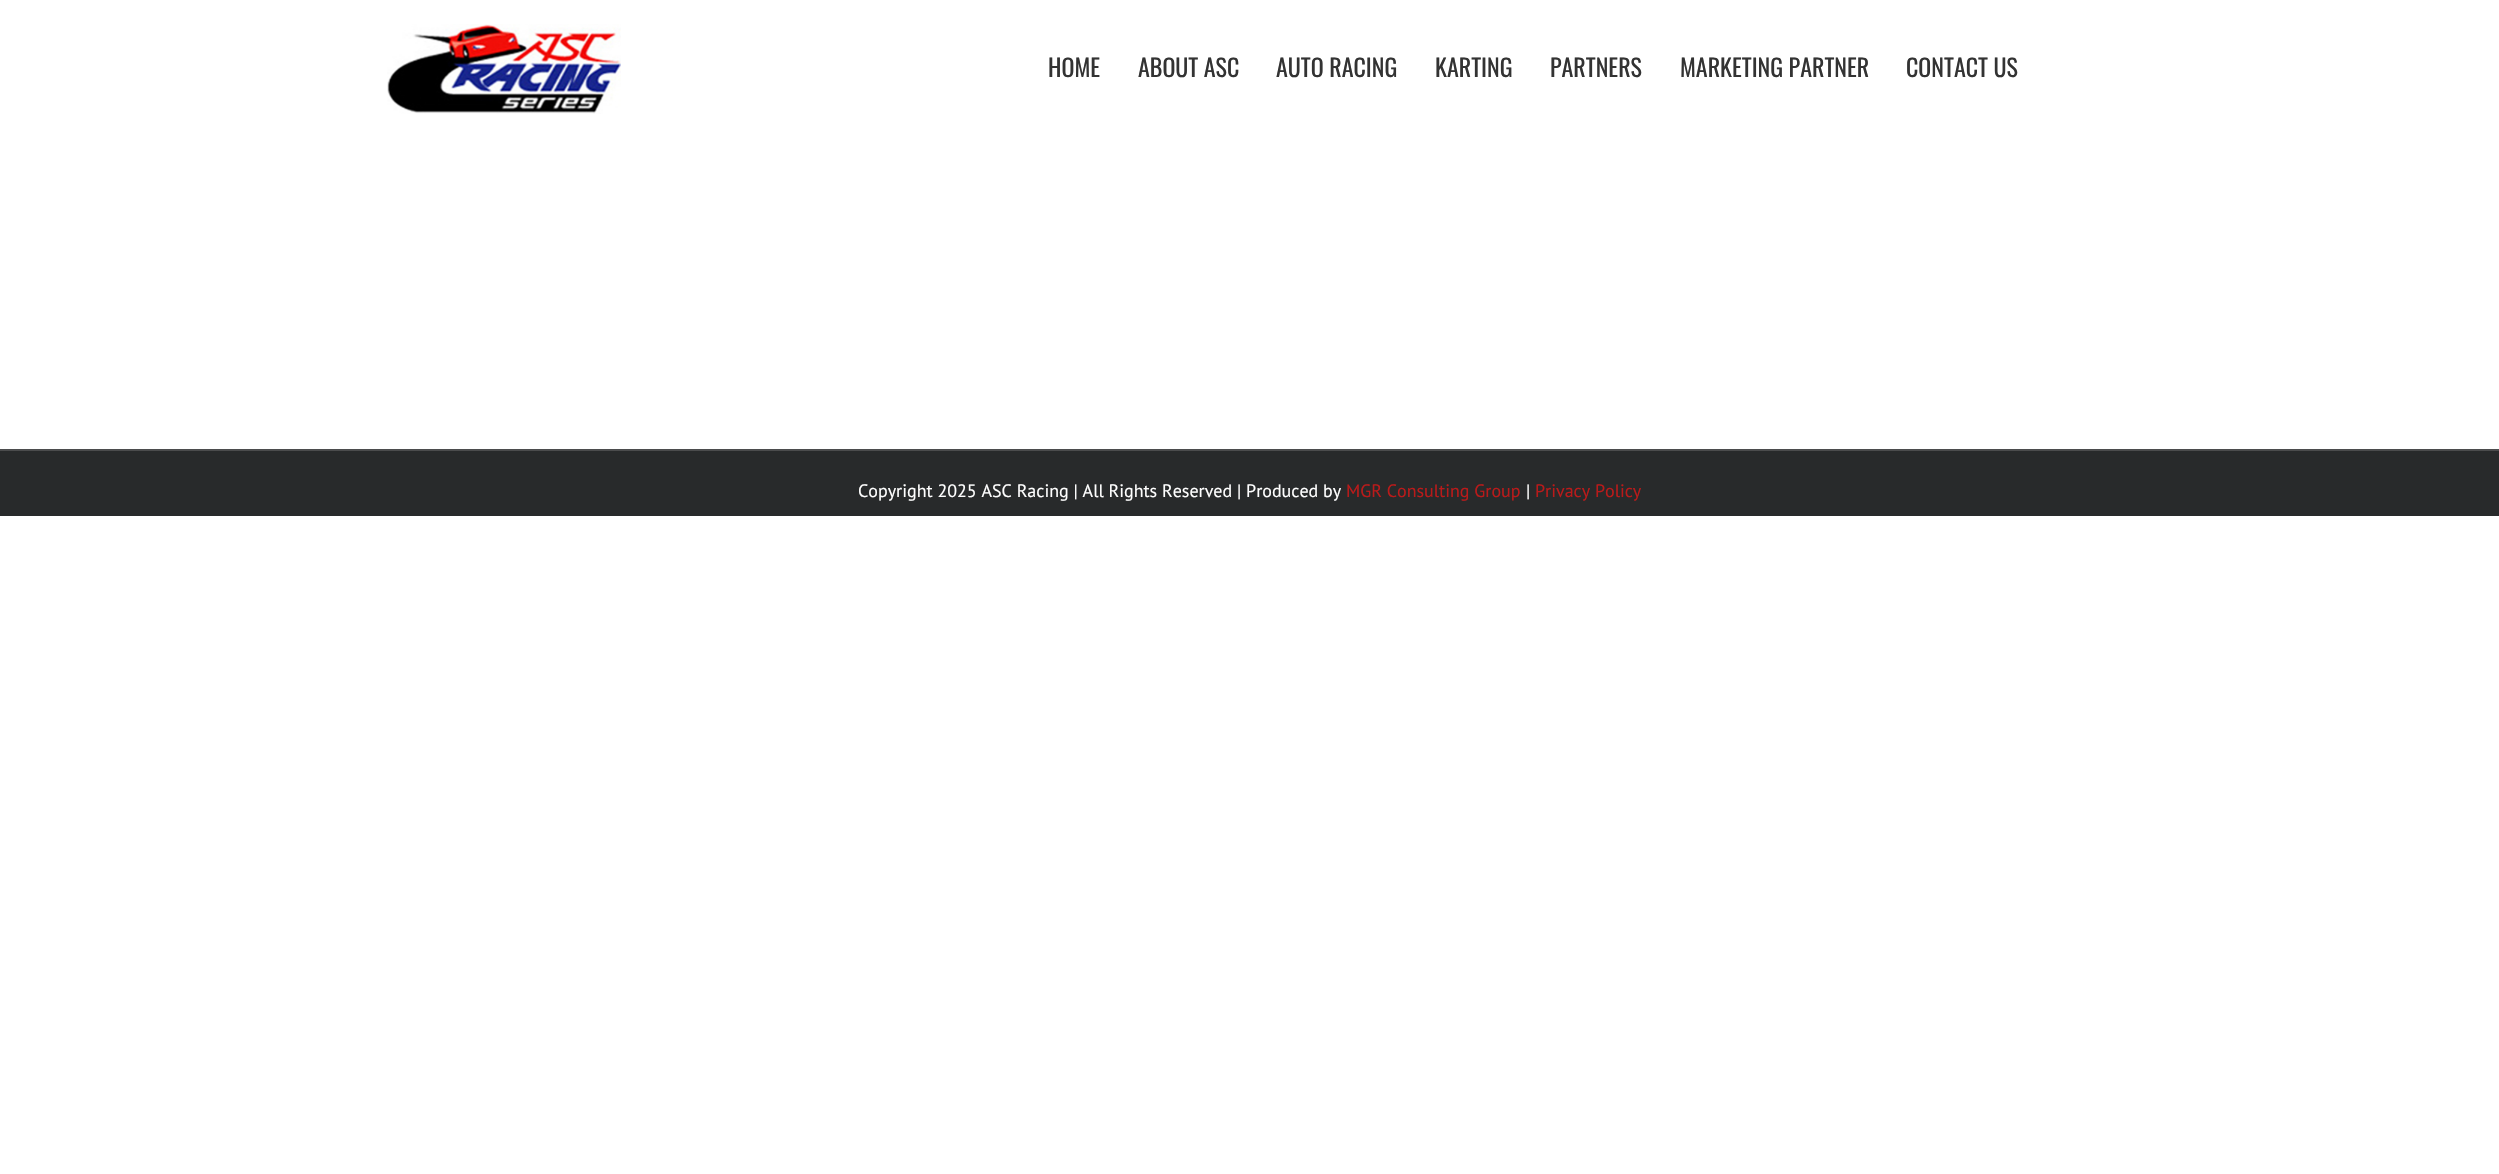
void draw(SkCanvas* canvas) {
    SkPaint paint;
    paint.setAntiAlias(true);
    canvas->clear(0xFFFFFFFF);
    canvas->drawImageRect(SkImages::DeferredFromEncodedData(SkData::MakeFromFileName("img1.png")), SkRect::MakeXYWH(387, 24, 234, 90), SkSamplingOptions());
    SkFont font1(fontMgr->matchFamilyStyle("Oswald", SkFontStyle::Normal()), 24);
    font1.setSubpixel(true);
    paint.setColor(0xFF333333);
    canvas->drawString("HOME", 1048, 77, font1, paint);
    canvas->drawString("ABOUT ASC", 1138, 77, font1, paint);
    canvas->drawString("AUTO RACING", 1276, 77, font1, paint);
    canvas->drawString("KARTING", 1435, 77, font1, paint);
    canvas->drawString("PARTNERS", 1550, 77, font1, paint);
    canvas->drawString("MARKETING PARTNER", 1680, 77, font1, paint);
    canvas->drawString("CONTACT US", 1906, 77, font1, paint);
    paint.setColor(0xFF282A2B);
    canvas->drawRect(SkRect::MakeXYWH(0, 451, 2499, 65), paint);
    paint.setColor(0xFF4B4C4D);
    canvas->drawRect(SkRect::MakeXYWH(0, 449, 2499, 2), paint);
    SkFont font2(fontMgr->matchFamilyStyle("PT Sans", SkFontStyle::Normal()), 18);
    font2.setSubpixel(true);
    paint.setColor(0xFFFFFFFF);
    canvas->drawString("Copyright 2025 ASC Racing | All Rights Reserved | Produced by", 858, 497, font2, paint);
    paint.setColor(0xFFBA1A1A);
    canvas->drawString("MGR Consulting Group", 1346, 497, font2, paint);
    paint.setColor(0xFFFFFFFF);
    canvas->drawString("|", 1526, 497, font2, paint);
    paint.setColor(0xFFBA1A1A);
    canvas->drawString("Privacy Policy", 1535, 497, font2, paint);
}
